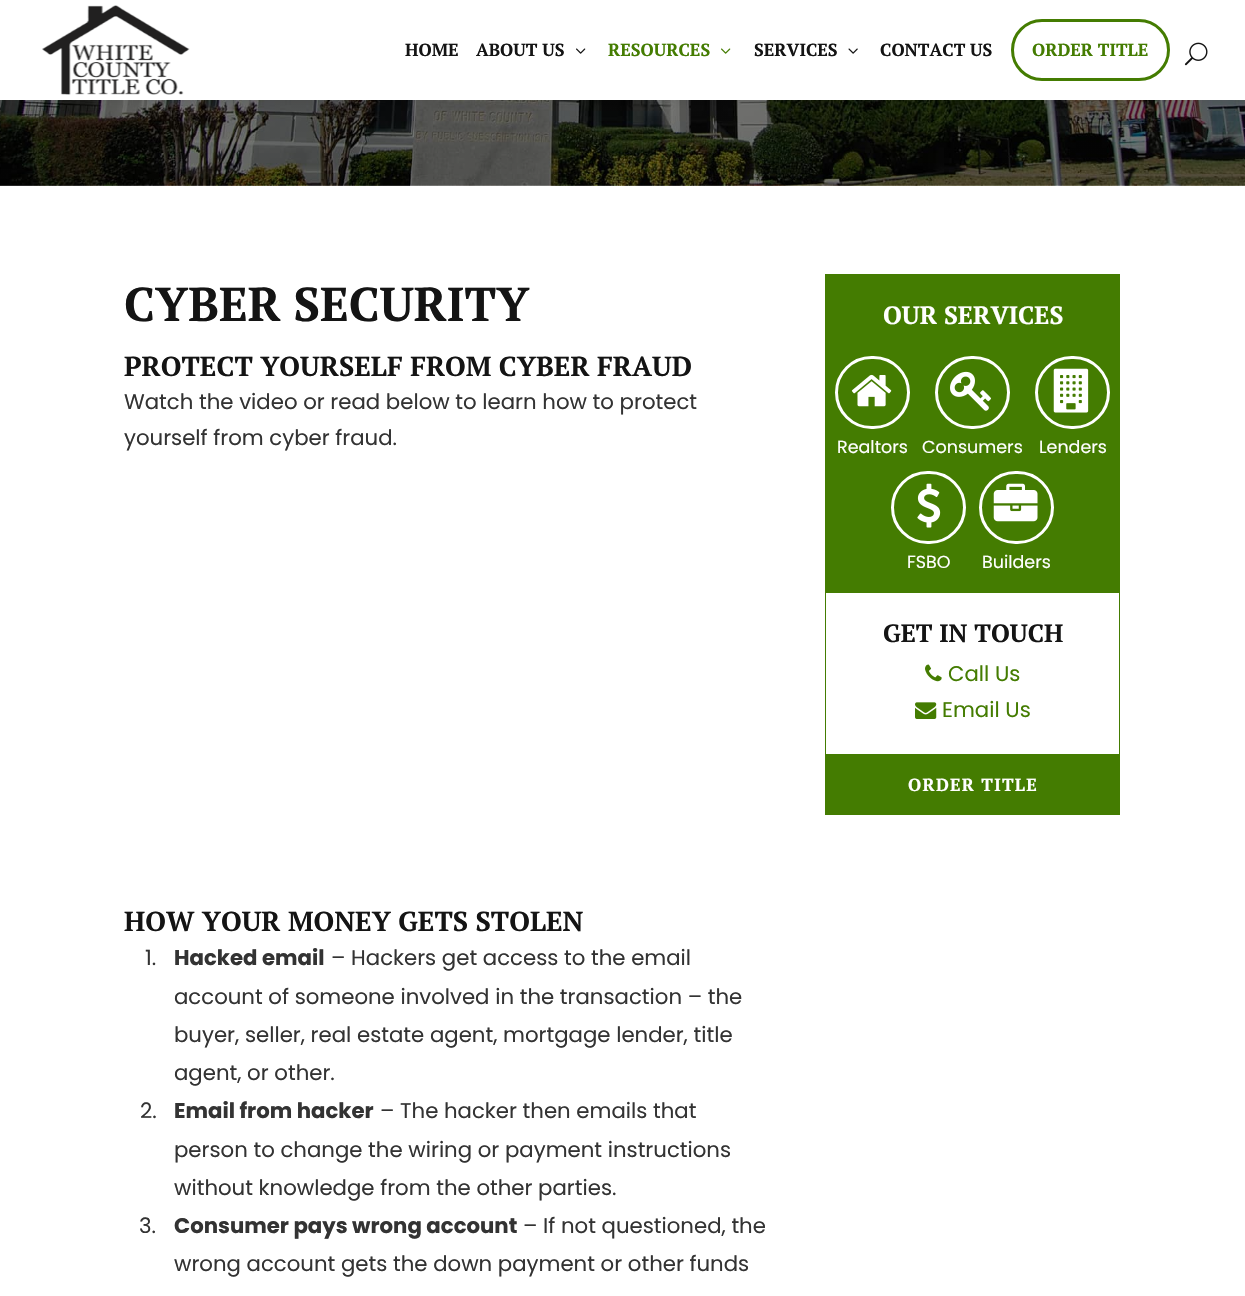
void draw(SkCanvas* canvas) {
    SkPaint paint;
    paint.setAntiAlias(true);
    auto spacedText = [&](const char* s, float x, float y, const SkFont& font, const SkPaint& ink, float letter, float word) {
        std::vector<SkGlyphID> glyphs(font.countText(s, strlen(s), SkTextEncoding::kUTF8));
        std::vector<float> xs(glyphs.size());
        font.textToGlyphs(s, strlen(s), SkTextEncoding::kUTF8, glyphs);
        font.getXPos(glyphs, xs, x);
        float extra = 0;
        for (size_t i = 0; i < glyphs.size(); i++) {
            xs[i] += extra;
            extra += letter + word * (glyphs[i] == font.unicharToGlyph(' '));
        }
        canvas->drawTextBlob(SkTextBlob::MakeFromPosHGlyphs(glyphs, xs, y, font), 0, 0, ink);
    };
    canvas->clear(0xFFFFFFFF);
    canvas->drawImageRect(SkImages::DeferredFromEncodedData(SkData::MakeFromFileName("img6.png")), SkRect::MakeXYWH(0, 100, 1245, 86), SkSamplingOptions());
    paint.setColor(0x1A000000);
    paint.setMaskFilter(SkMaskFilter::MakeBlur(kNormal_SkBlurStyle, 4.5f));
    canvas->drawRect(SkRect::MakeXYWH(0, 0, 1245, 100), paint);
    paint.setMaskFilter(nullptr);
    paint.setColor(0xFFFFFFFF);
    canvas->drawRect(SkRect::MakeXYWH(0, 0, 1245, 100), paint);
    canvas->drawImageRect(SkImages::DeferredFromEncodedData(SkData::MakeFromFileName("img1.png")), SkRect::MakeXYWH(42, 5, 148, 90), SkSamplingOptions());
    SkFont font1(fontMgr->matchFamilyStyle("PT Serif", SkFontStyle::Bold()), 17.5f);
    font1.setSubpixel(true);
    paint.setColor(0xFF141414);
    canvas->drawString("HOME", 405, 56, font1, paint);
    canvas->drawString("ABOUT US", 476, 56, font1, paint);
    canvas->drawImageRect(SkImages::DeferredFromEncodedData(SkData::MakeFromFileName("img2.png")), SkRect::MakeXYWH(576, 48, 10, 6), SkSamplingOptions());
    paint.setColor(0xFF447C01);
    canvas->drawString("RESOURCES", 608, 56, font1, paint);
    canvas->drawImageRect(SkImages::DeferredFromEncodedData(SkData::MakeFromFileName("img3.png")), SkRect::MakeXYWH(721, 48, 10, 6), SkSamplingOptions());
    paint.setColor(0xFF141414);
    canvas->drawString("SERVICES", 754, 56, font1, paint);
    canvas->drawImageRect(SkImages::DeferredFromEncodedData(SkData::MakeFromFileName("img4.png")), SkRect::MakeXYWH(848, 48, 10, 6), SkSamplingOptions());
    canvas->drawString("CONTACT US", 880, 56, font1, paint);
    paint.setStyle(SkPaint::kStroke_Style);
    paint.setStrokeWidth(3);
    paint.setColor(0xFF447C01);
    canvas->drawRoundRect(SkRect::MakeXYWH(1012.5f, 20.5f, 156, 59), 29.5f, 29.5f, paint);
    paint.setStyle(SkPaint::kFill_Style);
    canvas->drawString("ORDER TITLE", 1032, 56, font1, paint);
    canvas->drawImageRect(SkImages::DeferredFromEncodedData(SkData::MakeFromFileName("img5.png")), SkRect::MakeXYWH(1184, 42, 24, 24), SkSamplingOptions());
    SkFont font2(fontMgr->matchFamilyStyle("PT Serif", SkFontStyle::Bold()), 47.5f);
    font2.setSubpixel(true);
    paint.setColor(0xFF141414);
    canvas->drawString("CYBER SECURITY", 124, 321, font2, paint);
    SkFont font3(fontMgr->matchFamilyStyle("PT Serif", SkFontStyle::Bold()), 27.5f);
    font3.setSubpixel(true);
    canvas->drawString("PROTECT YOURSELF FROM CYBER FRAUD", 124, 376, font3, paint);
    SkFont font4(fontMgr->matchFamilyStyle("Poppins", SkFontStyle::Normal()), 21.25f);
    font4.setSubpixel(true);
    paint.setColor(0xFF333333);
    canvas->drawString("Watch the video or read below to learn how to protect", 124, 409, font4, paint);
    canvas->drawString("yourself from cyber fraud.", 124, 445, font4, paint);
    paint.setColor(0xFF141414);
    canvas->drawString("HOW YOUR MONEY GETS STOLEN", 124, 931, font3, paint);
    paint.setColor(0xFF333333);
    canvas->drawString("1.", 145, 965, font4, paint);
    SkFont font5(fontMgr->matchFamilyStyle("Poppins", SkFontStyle::Bold()), 21.25f);
    font5.setSubpixel(true);
    canvas->drawString("Hacked email", 174, 965, font5, paint);
    canvas->drawString("– Hackers get access to the email", 331, 965, font4, paint);
    canvas->drawString("account of someone involved in the transaction – the", 174, 1004, font4, paint);
    canvas->drawString("buyer, seller, real estate agent, mortgage lender, title", 174, 1042, font4, paint);
    canvas->drawString("agent, or other.", 174, 1080, font4, paint);
    canvas->drawString("2.", 140, 1118, font4, paint);
    canvas->drawString("Email from hacker", 174, 1118, font5, paint);
    canvas->drawString("– The hacker then emails that", 380, 1118, font4, paint);
    canvas->drawString("person to change the wiring or payment instructions", 174, 1157, font4, paint);
    canvas->drawString("without knowledge from the other parties.", 174, 1195, font4, paint);
    canvas->drawString("3.", 139, 1233, font4, paint);
    canvas->drawString("Consumer pays wrong account", 174, 1233, font5, paint);
    canvas->drawString("– If not questioned, the", 523, 1233, font4, paint);
    canvas->drawString("wrong account gets the down payment or other funds", 174, 1271, font4, paint);
    paint.setColor(0xFF447C01);
    canvas->drawRect(SkRect::MakeXYWH(825, 274, 295, 319), paint);
    SkFont font6(fontMgr->matchFamilyStyle("PT Serif", SkFontStyle::Bold()), 25);
    font6.setSubpixel(true);
    paint.setColor(0xFFFFFFFF);
    canvas->drawString("OUR SERVICES", 883, 324, font6, paint);
    paint.setStyle(SkPaint::kStroke_Style);
    canvas->drawRoundRect(SkRect::MakeXYWH(836.5f, 357.5f, 72, 70), 35, 35, paint);
    canvas->drawImageRect(SkImages::DeferredFromEncodedData(SkData::MakeFromFileName("img7.png")), SkRect::MakeXYWH(851, 374, 41, 33), SkSamplingOptions());
    SkFont font7(fontMgr->matchFamilyStyle("Poppins", SkFontStyle::Normal()), 17.5f);
    font7.setSubpixel(true);
    paint.setStyle(SkPaint::kFill_Style);
    canvas->drawString("Realtors", 837, 453, font7, paint);
    paint.setStyle(SkPaint::kStroke_Style);
    canvas->drawRoundRect(SkRect::MakeXYWH(936.5f, 357.5f, 72, 70), 35, 35, paint);
    canvas->drawImageRect(SkImages::DeferredFromEncodedData(SkData::MakeFromFileName("img8.png")), SkRect::MakeXYWH(950, 371, 41, 40), SkSamplingOptions());
    paint.setStyle(SkPaint::kFill_Style);
    canvas->drawString("Consumers", 922, 453, font7, paint);
    paint.setStyle(SkPaint::kStroke_Style);
    canvas->drawRoundRect(SkRect::MakeXYWH(1036.5f, 357.5f, 72, 70), 35, 35, paint);
    canvas->drawImageRect(SkImages::DeferredFromEncodedData(SkData::MakeFromFileName("img9.png")), SkRect::MakeXYWH(1053, 368, 36, 45), SkSamplingOptions());
    paint.setStyle(SkPaint::kFill_Style);
    canvas->drawString("Lenders", 1039, 453, font7, paint);
    paint.setStyle(SkPaint::kStroke_Style);
    canvas->drawRoundRect(SkRect::MakeXYWH(892.5f, 472.5f, 72, 70), 35, 35, paint);
    canvas->drawImageRect(SkImages::DeferredFromEncodedData(SkData::MakeFromFileName("img10.png")), SkRect::MakeXYWH(917, 483, 24, 45), SkSamplingOptions());
    paint.setStyle(SkPaint::kFill_Style);
    canvas->drawString("FSBO", 907, 568, font7, paint);
    paint.setStyle(SkPaint::kStroke_Style);
    canvas->drawRoundRect(SkRect::MakeXYWH(980.5f, 472.5f, 72, 70), 35, 35, paint);
    canvas->drawImageRect(SkImages::DeferredFromEncodedData(SkData::MakeFromFileName("img11.png")), SkRect::MakeXYWH(993, 483, 45, 39), SkSamplingOptions());
    paint.setStyle(SkPaint::kFill_Style);
    canvas->drawString("Builders", 982, 568, font7, paint);
    paint.setColor(0xFF447C01);
    canvas->drawRect(SkRect::MakeXYWH(1119, 593, 1, 161), paint);
    canvas->drawRect(SkRect::MakeXYWH(825, 593, 1, 161), paint);
    paint.setColor(0xFF141414);
    canvas->drawString("GET IN TOUCH", 883, 642, font6, paint);
    canvas->drawImageRect(SkImages::DeferredFromEncodedData(SkData::MakeFromFileName("img12.png")), SkRect::MakeXYWH(925, 664, 17, 18), SkSamplingOptions());
    paint.setColor(0xFF447C01);
    canvas->drawString("Call Us", 948, 681, font4, paint);
    canvas->drawImageRect(SkImages::DeferredFromEncodedData(SkData::MakeFromFileName("img13.png")), SkRect::MakeXYWH(915, 702, 22, 17), SkSamplingOptions());
    canvas->drawString("Email Us", 942, 717, font4, paint);
    canvas->drawRect(SkRect::MakeXYWH(825, 754, 295, 61), paint);
    paint.setColor(0xFFFFFFFF);
    spacedText("ORDER TITLE", 908, 791, font1, paint, 1.25f, 0);
}
